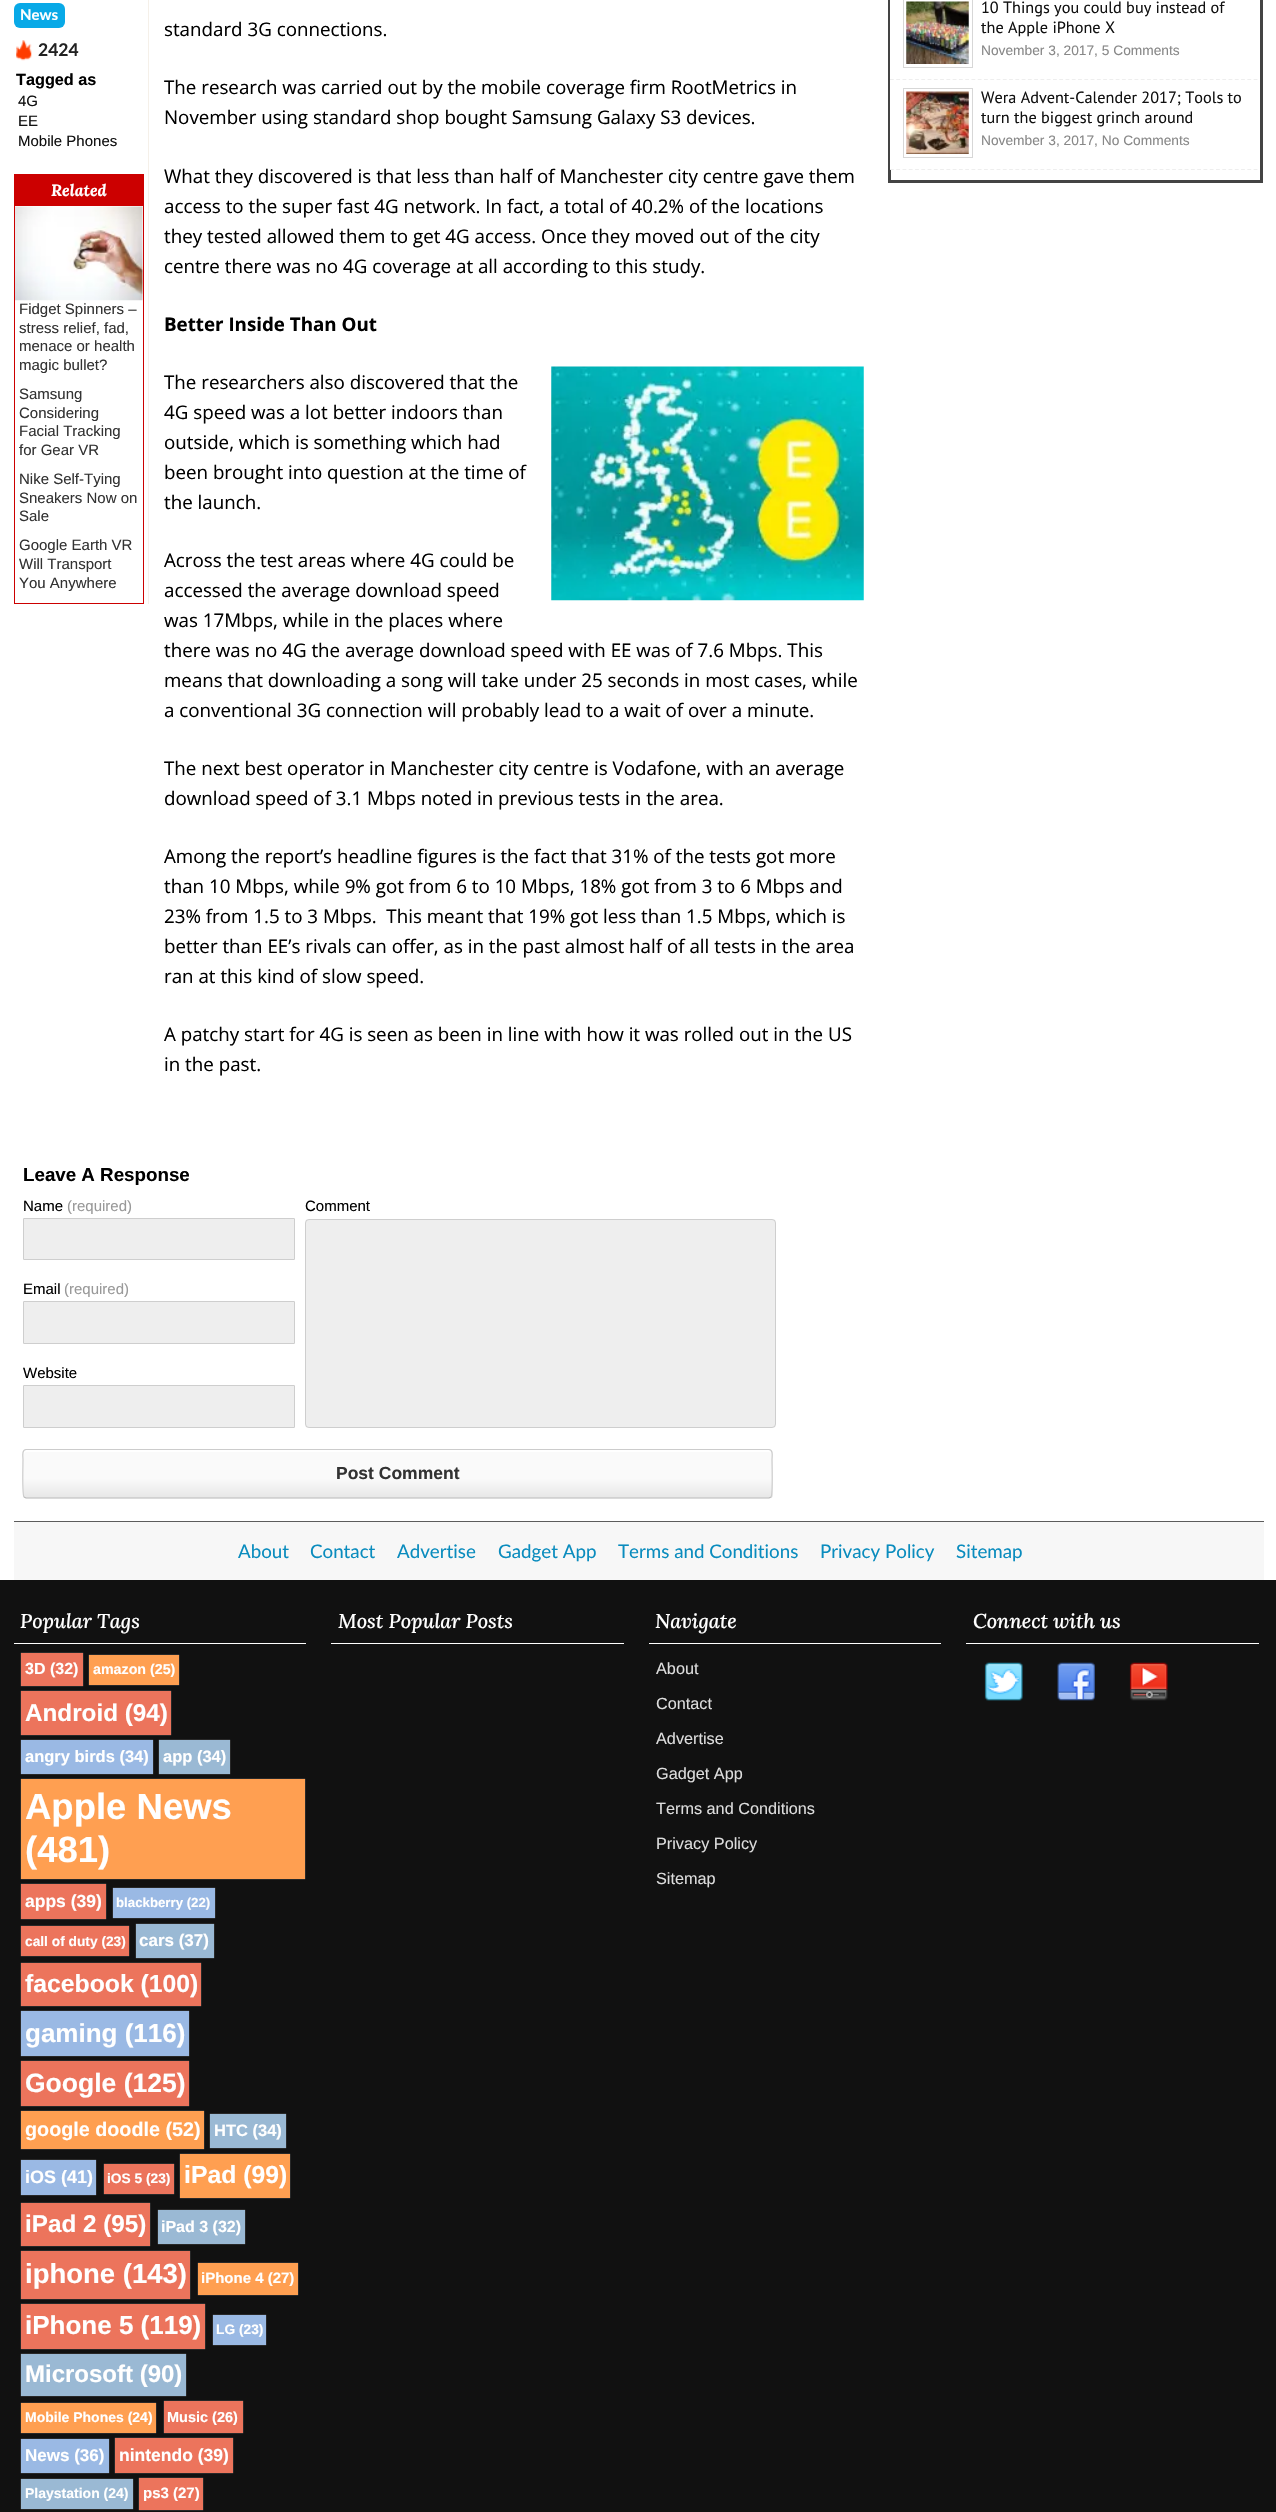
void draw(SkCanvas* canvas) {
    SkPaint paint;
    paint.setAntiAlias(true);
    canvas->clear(0xFFFFFFFF);
    paint.setColor(0xFFF5F0E9);
    canvas->drawRect(SkRect::MakeXYWH(148, 0, 1, 604), paint);
    paint.setColor(0xFF08A9E7);
    canvas->drawRoundRect(SkRect::MakeXYWH(14, 3, 51, 25), 6, 6, paint);
    SkFont font1(fontMgr->matchFamilyStyle("Lato", SkFontStyle::Bold()), 15);
    font1.setSubpixel(true);
    paint.setColor(0xFFFFFFFF);
    canvas->drawString("News", 20, 20, font1, paint);
    canvas->drawImageRect(SkImages::DeferredFromEncodedData(SkData::MakeFromFileName("img1.png")), SkRect::MakeXYWH(16, 40, 16, 21), SkSamplingOptions());
    SkFont font2(fontMgr->matchFamilyStyle("Lato", SkFontStyle::Bold()), 17.5f);
    font2.setSubpixel(true);
    paint.setColor(0xFF222222);
    canvas->drawString("2424", 38, 56, font2, paint);
    SkFont font3(fontMgr->matchFamilyStyle("Liberation Sans", SkFontStyle::Bold()), 16.25f);
    font3.setSubpixel(true);
    paint.setColor(0xFF000000);
    canvas->drawString("Tagged as", 16, 85, font3, paint);
    SkFont font4(fontMgr->matchFamilyStyle("Liberation Sans", SkFontStyle::Normal()), 15);
    font4.setSubpixel(true);
    paint.setColor(0xFF111111);
    canvas->drawString("4G", 18, 106, font4, paint);
    canvas->drawString("EE", 18, 126, font4, paint);
    canvas->drawString("Mobile Phones", 18, 146, font4, paint);
    paint.setStyle(SkPaint::kStroke_Style);
    paint.setStrokeWidth(1);
    paint.setColor(0xFFCC0000);
    canvas->drawRect(SkRect::MakeXYWH(14.5f, 174.5f, 129, 429), paint);
    paint.setStyle(SkPaint::kFill_Style);
    canvas->drawRect(SkRect::MakeXYWH(15, 175, 128, 31), paint);
    SkFont font5(fontMgr->matchFamilyStyle("Lora", SkFontStyle::BoldItalic()), 16.25f);
    font5.setSubpixel(true);
    paint.setColor(0xFFFFFFFF);
    canvas->drawString("Related", 51, 196, font5, paint);
    canvas->drawImageRect(SkImages::DeferredFromEncodedData(SkData::MakeFromFileName("img2.png")), SkRect::MakeXYWH(15, 206, 128, 95), SkSamplingOptions());
    paint.setColor(0xFF333333);
    canvas->drawString("Fidget Spinners –", 19, 314, font4, paint);
    canvas->drawString("stress relief, fad,", 19, 333, font4, paint);
    canvas->drawString("menace or health", 19, 351, font4, paint);
    canvas->drawString("magic bullet?", 19, 370, font4, paint);
    canvas->drawString("Samsung", 19, 399, font4, paint);
    canvas->drawString("Considering", 19, 418, font4, paint);
    canvas->drawString("Facial Tracking", 19, 436, font4, paint);
    canvas->drawString("for Gear VR", 19, 455, font4, paint);
    canvas->drawString("Nike Self-Tying", 19, 484, font4, paint);
    canvas->drawString("Sneakers Now on", 19, 503, font4, paint);
    canvas->drawString("Sale", 19, 521, font4, paint);
    canvas->drawString("Google Earth VR", 19, 550, font4, paint);
    canvas->drawString("Will Transport", 19, 569, font4, paint);
    canvas->drawString("You Anywhere", 19, 588, font4, paint);
    SkFont font6(fontMgr->matchFamilyStyle("Open Sans", SkFontStyle::Normal()), 18.75f);
    font6.setSubpixel(true);
    paint.setColor(0xFF000000);
    canvas->drawString("standard 3G connections.", 164, 36, font6, paint);
    canvas->drawString("The research was carried out by the mobile coverage firm RootMetrics in", 164, 94, font6, paint);
    canvas->drawString("November using standard shop bought Samsung Galaxy S3 devices.", 164, 124, font6, paint);
    canvas->drawString("What they discovered is that less than half of Manchester city centre gave them", 164, 183, font6, paint);
    canvas->drawString("access to the super fast 4G network. In fact, a total of 40.2% of the locations", 164, 213, font6, paint);
    canvas->drawString("they tested allowed them to get 4G access. Once they moved out of the city", 164, 243, font6, paint);
    canvas->drawString("centre there was no 4G coverage at all according to this study.", 164, 273, font6, paint);
    SkFont font7(fontMgr->matchFamilyStyle("Open Sans", SkFontStyle::Bold()), 18.75f);
    font7.setSubpixel(true);
    canvas->drawString("Better Inside Than Out", 164, 331, font7, paint);
    canvas->drawString("The researchers also discovered that the", 164, 389, font6, paint);
    canvas->drawImageRect(SkImages::DeferredFromEncodedData(SkData::MakeFromFileName("img3.png")), SkRect::MakeXYWH(551, 366, 313, 235), SkSamplingOptions());
    canvas->drawString("4G speed was a lot better indoors than", 164, 419, font6, paint);
    canvas->drawString("outside, which is something which had", 164, 449, font6, paint);
    canvas->drawString("been brought into question at the time of", 164, 479, font6, paint);
    canvas->drawString("the launch.", 164, 509, font6, paint);
    canvas->drawString("Across the test areas where 4G could be", 164, 567, font6, paint);
    canvas->drawString("accessed the average download speed", 164, 597, font6, paint);
    canvas->drawString("was 17Mbps, while in the places where", 164, 627, font6, paint);
    canvas->drawString("there was no 4G the average download speed with EE was of 7.6 Mbps. This", 164, 657, font6, paint);
    canvas->drawString("means that downloading a song will take under 25 seconds in most cases, while", 164, 687, font6, paint);
    canvas->drawString("a conventional 3G connection will probably lead to a wait of over a minute.", 164, 717, font6, paint);
    canvas->drawString("The next best operator in Manchester city centre is Vodafone, with an average", 164, 775, font6, paint);
    canvas->drawString("download speed of 3.1 Mbps noted in previous tests in the area.", 164, 805, font6, paint);
    canvas->drawString("Among the report’s headline figures is the fact that 31% of the tests got more", 164, 863, font6, paint);
    canvas->drawString("than 10 Mbps, while 9% got from 6 to 10 Mbps, 18% got from 3 to 6 Mbps and", 164, 893, font6, paint);
    canvas->drawString("23% from 1.5 to 3 Mbps.  This meant that 19% got less than 1.5 Mbps, which is", 164, 923, font6, paint);
    canvas->drawString("better than EE’s rivals can offer, as in the past almost half of all tests in the area", 164, 953, font6, paint);
    canvas->drawString("ran at this kind of slow speed.", 164, 983, font6, paint);
    canvas->drawString("A patchy start for 4G is seen as been in line with how it was rolled out in the US", 164, 1041, font6, paint);
    canvas->drawString("in the past.", 164, 1071, font6, paint);
    SkFont font8(fontMgr->matchFamilyStyle("Liberation Sans", SkFontStyle::Bold()), 18.75f);
    font8.setSubpixel(true);
    canvas->drawString("Leave A Response", 23, 1181, font8, paint);
    canvas->drawString("Name", 23, 1211, font4, paint);
    paint.setColor(0xFF999999);
    canvas->drawString("(required)", 67, 1211, font4, paint);
    paint.setColor(0xFFEEEEEE);
    canvas->drawRoundRect(SkRect::MakeXYWH(23, 1218, 272, 42), 1, 1, paint);
    paint.setStyle(SkPaint::kStroke_Style);
    paint.setColor(0x80AEADAD);
    canvas->drawRoundRect(SkRect::MakeXYWH(23.5f, 1218.5f, 271, 41), 0.5f, 0.5f, paint);
    paint.setStyle(SkPaint::kFill_Style);
    paint.setColor(0xFF000000);
    canvas->drawString("Email", 23, 1294, font4, paint);
    paint.setColor(0xFF999999);
    canvas->drawString("(required)", 64, 1294, font4, paint);
    paint.setColor(0xFFEEEEEE);
    canvas->drawRoundRect(SkRect::MakeXYWH(23, 1301, 272, 43), 1, 1, paint);
    paint.setStyle(SkPaint::kStroke_Style);
    paint.setColor(0x80AEADAD);
    canvas->drawRoundRect(SkRect::MakeXYWH(23.5f, 1301.5f, 271, 42), 0.5f, 0.5f, paint);
    paint.setStyle(SkPaint::kFill_Style);
    paint.setColor(0xFF000000);
    canvas->drawString("Website", 23, 1378, font4, paint);
    paint.setColor(0xFFEEEEEE);
    canvas->drawRoundRect(SkRect::MakeXYWH(23, 1385, 272, 43), 1, 1, paint);
    paint.setStyle(SkPaint::kStroke_Style);
    paint.setColor(0x80AEADAD);
    canvas->drawRoundRect(SkRect::MakeXYWH(23.5f, 1385.5f, 271, 42), 0.5f, 0.5f, paint);
    paint.setStyle(SkPaint::kFill_Style);
    paint.setColor(0xFF000000);
    canvas->drawString("Comment", 305, 1211, font4, paint);
    paint.setColor(0xFFEEEEEE);
    canvas->drawRoundRect(SkRect::MakeXYWH(305, 1219, 471, 209), 4, 4, paint);
    paint.setStyle(SkPaint::kStroke_Style);
    paint.setColor(0x80AEADAD);
    canvas->drawRoundRect(SkRect::MakeXYWH(305.5f, 1219.5f, 470, 208), 3.5f, 3.5f, paint);
    canvas->save();
    canvas->clipPath(SkPathBuilder().moveTo(27, 1449).lineTo(769, 1449).cubicTo(771, 1449, 773, 1451, 773, 1453).lineTo(773, 1495).cubicTo(773, 1497, 771, 1499, 769, 1499).lineTo(27, 1499).cubicTo(25, 1499, 23, 1497, 23, 1495).lineTo(23, 1453).cubicTo(23, 1451, 25, 1449, 27, 1449).close().detach(), true);
    paint.setStyle(SkPaint::kFill_Style);
    {
        const SkColor colors[] = {0xFFFAFAFA, 0xFFE6E6E6};
        const float stops[] = {0.6f, 1};
        const SkPoint ends[] = {{398, 1450}, {398, 1498}};
        paint.setShader(SkGradientShader::MakeLinear(ends, colors, stops, 2, SkTileMode::kClamp));
        paint.setAlpha(255);
    }
    canvas->drawRect(SkRect::MakeXYWH(23, 1450, 750, 48), paint);
    {
        const SkColor colors[] = {0xFFFAFAFA, 0xFFE6E6E6};
        const float stops[] = {0.6f, 1};
        const SkPoint ends[] = {{398, 1498}, {398, 1545}};
        paint.setShader(SkGradientShader::MakeLinear(ends, colors, stops, 2, SkTileMode::kClamp));
        paint.setAlpha(255);
    }
    canvas->drawRect(SkRect::MakeXYWH(23, 1498, 750, 1), paint);
    canvas->restore();
    paint.setShader(nullptr);
    paint.setColor(0xFFFFFFFF);
    canvas->drawPath(SkPathBuilder().moveTo(26, 1452).lineTo(769, 1452).cubicTo(770, 1452, 771, 1454, 771, 1455).cubicTo(771, 1453, 771, 1450, 768, 1450).lineTo(26, 1450).lineTo(24, 1451).lineTo(24, 1455).cubicTo(24, 1454, 25, 1452, 26, 1452).close().detach(), paint);
    paint.setStyle(SkPaint::kStroke_Style);
    paint.setStrokeWidth(1.2f);
    paint.setColor(0xFFBBBBBB);
    canvas->drawPath(SkPathBuilder().moveTo(771, 1497).lineTo(769, 1498).lineTo(26, 1498).lineTo(24, 1497).detach(), paint);
    paint.setColor(0xFFCCCCCC);
    canvas->drawPath(SkPathBuilder().moveTo(24, 1497).cubicTo(22, 1495, 23, 1464.5f, 23, 1459.5f).cubicTo(23, 1457.5f, 21.5f, 1449.5f, 26, 1449.5f).lineTo(769, 1449.5f).cubicTo(773.5f, 1449.5f, 772, 1457.5f, 772, 1459.5f).cubicTo(772, 1464.5f, 773, 1495, 771, 1497).detach(), paint);
    SkFont font9(fontMgr->matchFamilyStyle("Liberation Sans", SkFontStyle::Bold()), 17.5f);
    font9.setSubpixel(true);
    paint.setStyle(SkPaint::kFill_Style);
    paint.setColor(0xFF333333);
    canvas->drawString("Post Comment", 336, 1479, font9, paint);
    paint.setColor(0xFF444444);
    canvas->drawRect(SkRect::MakeXYWH(1260, 0, 3, 183), paint);
    canvas->drawRect(SkRect::MakeXYWH(888, 180, 375, 3), paint);
    canvas->drawRect(SkRect::MakeXYWH(888, 0, 3, 183), paint);
    paint.setColor(0xFFFFFFFF);
    canvas->drawRect(SkRect::MakeXYWH(890, 0, 1, 80), paint);
    paint.setStyle(SkPaint::kStroke_Style);
    paint.setColor(0xFFEEEEEE);
    paint.setPathEffect(SkDashPathEffect::Make({{3.75f, 2.52f}}, 0));
    canvas->drawPath(SkPathBuilder().moveTo(890, 79.5f).lineTo(1257.5f, 79.5f).detach(), paint);
    paint.setPathEffect(nullptr);
    paint.setStrokeWidth(1);
    paint.setColor(0xFFD7D7D7);
    canvas->drawRect(SkRect::MakeXYWH(903.5f, -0.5f, 69, 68), paint);
    canvas->drawImageRect(SkImages::DeferredFromEncodedData(SkData::MakeFromFileName("img4.png")), SkRect::MakeXYWH(906, 1, 63, 63), SkSamplingOptions());
    SkFont font10(fontMgr->matchFamilyStyle("PT Sans", SkFontStyle::Normal()), 16.25f);
    font10.setSubpixel(true);
    paint.setStyle(SkPaint::kFill_Style);
    paint.setColor(0xFF111111);
    canvas->drawString("10 Things you could buy instead of", 981, 13, font10, paint);
    canvas->drawString("the Apple iPhone X", 981, 33, font10, paint);
    SkFont font11(fontMgr->matchFamilyStyle("Liberation Sans", SkFontStyle::Normal()), 13.75f);
    font11.setSubpixel(true);
    paint.setColor(0xFF888888);
    canvas->drawString("November 3, 2017, 5 Comments", 981, 55, font11, paint);
    paint.setColor(0xFFFFFFFF);
    canvas->drawRect(SkRect::MakeXYWH(890, 80, 1, 90), paint);
    paint.setStyle(SkPaint::kStroke_Style);
    paint.setStrokeWidth(1.2f);
    paint.setColor(0xFFEEEEEE);
    paint.setPathEffect(SkDashPathEffect::Make({{3.75f, 2.52f}}, 0));
    canvas->drawPath(SkPathBuilder().moveTo(890, 169.5f).lineTo(1257.5f, 169.5f).detach(), paint);
    paint.setPathEffect(nullptr);
    paint.setStrokeWidth(1);
    paint.setColor(0xFFD7D7D7);
    canvas->drawRect(SkRect::MakeXYWH(903.5f, 88.5f, 69, 69), paint);
    canvas->drawImageRect(SkImages::DeferredFromEncodedData(SkData::MakeFromFileName("img5.png")), SkRect::MakeXYWH(906, 91, 63, 63), SkSamplingOptions());
    paint.setStyle(SkPaint::kFill_Style);
    paint.setColor(0xFF111111);
    canvas->drawString("Wera Advent-Calender 2017; Tools to", 981, 103, font10, paint);
    canvas->drawString("turn the biggest grinch around", 981, 123, font10, paint);
    paint.setColor(0xFF888888);
    canvas->drawString("November 3, 2017, No Comments", 981, 145, font11, paint);
    paint.setColor(0xFFF7F7F7);
    canvas->drawRect(SkRect::MakeXYWH(14, 1522, 1250, 58), paint);
    paint.setColor(0xFF5C5C5C);
    canvas->drawRect(SkRect::MakeXYWH(14, 1521, 1250, 1), paint);
    SkFont font12(fontMgr->matchFamilyStyle("Lato", SkFontStyle::Normal()), 18.75f);
    font12.setSubpixel(true);
    paint.setColor(0xFF0A8CBE);
    canvas->drawString("About", 238, 1558, font12, paint);
    canvas->drawString("Contact", 310, 1558, font12, paint);
    canvas->drawString("Advertise", 397, 1558, font12, paint);
    canvas->drawString("Gadget App", 498, 1558, font12, paint);
    canvas->drawString("Terms and Conditions", 618, 1558, font12, paint);
    canvas->drawString("Privacy Policy", 820, 1558, font12, paint);
    canvas->drawString("Sitemap", 956, 1558, font12, paint);
    paint.setColor(0xFF111111);
    canvas->drawRect(SkRect::MakeXYWH(0, 1580, 1276, 932), paint);
    paint.setColor(0xFFFFFFFF);
    canvas->drawRect(SkRect::MakeXYWH(14, 1643, 292, 1), paint);
    SkFont font13(fontMgr->matchFamilyStyle("Lora", SkFontStyle(500, SkFontStyle::kNormal_Width, SkFontStyle::kItalic_Slant)), 20);
    font13.setSubpixel(true);
    canvas->drawString("Popular Tags", 20, 1628, font13, paint);
    paint.setColor(0xFF999999);
    paint.setMaskFilter(SkMaskFilter::MakeBlur(kNormal_SkBlurStyle, 0.5f));
    canvas->drawRect(SkRect::MakeXYWH(21, 1653, 62, 33), paint);
    paint.setMaskFilter(nullptr);
    paint.setColor(0xFFEC745C);
    canvas->drawRect(SkRect::MakeXYWH(21, 1653, 62, 33), paint);
    SkFont font14(fontMgr->matchFamilyStyle("Liberation Sans", SkFontStyle::Bold()), 16);
    font14.setSubpixel(true);
    paint.setColor(0xFFFFFFFF);
    canvas->drawString("3D (32)", 25, 1674, font14, paint);
    paint.setColor(0xFF999999);
    paint.setMaskFilter(SkMaskFilter::MakeBlur(kNormal_SkBlurStyle, 0.5f));
    canvas->drawRect(SkRect::MakeXYWH(89, 1655, 90, 30), paint);
    paint.setMaskFilter(nullptr);
    paint.setColor(0xFFFF9F51);
    canvas->drawRect(SkRect::MakeXYWH(89, 1655, 90, 30), paint);
    SkFont font15(fontMgr->matchFamilyStyle("Liberation Sans", SkFontStyle::Bold()), 14.25f);
    font15.setSubpixel(true);
    paint.setColor(0xFFFFFFFF);
    canvas->drawString("amazon (25)", 93, 1674, font15, paint);
    paint.setColor(0xFF999999);
    paint.setMaskFilter(SkMaskFilter::MakeBlur(kNormal_SkBlurStyle, 0.5f));
    canvas->drawRect(SkRect::MakeXYWH(21, 1691, 150, 44), paint);
    paint.setMaskFilter(nullptr);
    paint.setColor(0xFFEC745C);
    canvas->drawRect(SkRect::MakeXYWH(21, 1691, 150, 44), paint);
    SkFont font16(fontMgr->matchFamilyStyle("Liberation Sans", SkFontStyle::Bold()), 24.25f);
    font16.setSubpixel(true);
    paint.setColor(0xFFFFFFFF);
    canvas->drawString("Android (94)", 25, 1721, font16, paint);
    paint.setColor(0xFF999999);
    paint.setMaskFilter(SkMaskFilter::MakeBlur(kNormal_SkBlurStyle, 0.5f));
    canvas->drawRect(SkRect::MakeXYWH(21, 1740, 132, 34), paint);
    paint.setMaskFilter(nullptr);
    paint.setColor(0xFF9AB9E4);
    canvas->drawRect(SkRect::MakeXYWH(21, 1740, 132, 34), paint);
    SkFont font17(fontMgr->matchFamilyStyle("Liberation Sans", SkFontStyle::Bold()), 16.5f);
    font17.setSubpixel(true);
    paint.setColor(0xFFFFFFFF);
    canvas->drawString("angry birds (34)", 25, 1762, font17, paint);
    paint.setColor(0xFF999999);
    paint.setMaskFilter(SkMaskFilter::MakeBlur(kNormal_SkBlurStyle, 0.5f));
    canvas->drawRect(SkRect::MakeXYWH(159, 1740, 71, 34), paint);
    paint.setMaskFilter(nullptr);
    paint.setColor(0xFF9AB9D4);
    canvas->drawRect(SkRect::MakeXYWH(159, 1740, 71, 34), paint);
    paint.setColor(0xFFFFFFFF);
    canvas->drawString("app (34)", 163, 1762, font17, paint);
    paint.setColor(0xFF999999);
    paint.setMaskFilter(SkMaskFilter::MakeBlur(kNormal_SkBlurStyle, 0.5f));
    canvas->drawRect(SkRect::MakeXYWH(21, 1779, 284, 100), paint);
    paint.setMaskFilter(nullptr);
    paint.setColor(0xFFFF9F51);
    canvas->drawRect(SkRect::MakeXYWH(21, 1779, 284, 100), paint);
    SkFont font18(fontMgr->matchFamilyStyle("Liberation Sans", SkFontStyle::Bold()), 36.5f);
    font18.setSubpixel(true);
    paint.setColor(0xFFFFFFFF);
    canvas->drawString("Apple News", 25, 1819, font18, paint);
    canvas->drawString("(481)", 25, 1862, font18, paint);
    paint.setColor(0xFF999999);
    paint.setMaskFilter(SkMaskFilter::MakeBlur(kNormal_SkBlurStyle, 0.5f));
    canvas->drawRect(SkRect::MakeXYWH(21, 1884, 85, 35), paint);
    paint.setMaskFilter(nullptr);
    paint.setColor(0xFFEC745C);
    canvas->drawRect(SkRect::MakeXYWH(21, 1884, 85, 35), paint);
    paint.setColor(0xFFFFFFFF);
    canvas->drawString("apps (39)", 25, 1907, font9, paint);
    paint.setColor(0xFF999999);
    paint.setMaskFilter(SkMaskFilter::MakeBlur(kNormal_SkBlurStyle, 0.5f));
    canvas->drawRect(SkRect::MakeXYWH(113, 1888, 102, 30), paint);
    paint.setMaskFilter(nullptr);
    paint.setColor(0xFF9AB9E4);
    canvas->drawRect(SkRect::MakeXYWH(113, 1888, 102, 30), paint);
    SkFont font19(fontMgr->matchFamilyStyle("Liberation Sans", SkFontStyle::Bold()), 13.25f);
    font19.setSubpixel(true);
    paint.setColor(0xFFFFFFFF);
    canvas->drawString("blackberry (22)", 116, 1907, font19, paint);
    paint.setColor(0xFF999999);
    paint.setMaskFilter(SkMaskFilter::MakeBlur(kNormal_SkBlurStyle, 0.5f));
    canvas->drawRect(SkRect::MakeXYWH(21, 1926, 108, 30), paint);
    paint.setMaskFilter(nullptr);
    paint.setColor(0xFFEC745C);
    canvas->drawRect(SkRect::MakeXYWH(21, 1926, 108, 30), paint);
    SkFont font20(fontMgr->matchFamilyStyle("Liberation Sans", SkFontStyle::Bold()), 13.75f);
    font20.setSubpixel(true);
    paint.setColor(0xFFFFFFFF);
    canvas->drawString("call of duty (23)", 25, 1946, font20, paint);
    paint.setColor(0xFF999999);
    paint.setMaskFilter(SkMaskFilter::MakeBlur(kNormal_SkBlurStyle, 0.5f));
    canvas->drawRect(SkRect::MakeXYWH(136, 1924, 78, 34), paint);
    paint.setMaskFilter(nullptr);
    paint.setColor(0xFF9AB9D4);
    canvas->drawRect(SkRect::MakeXYWH(136, 1924, 78, 34), paint);
    SkFont font21(fontMgr->matchFamilyStyle("Liberation Sans", SkFontStyle::Bold()), 17);
    font21.setSubpixel(true);
    paint.setColor(0xFFFFFFFF);
    canvas->drawString("cars (37)", 139, 1946, font21, paint);
    paint.setColor(0xFF999999);
    paint.setMaskFilter(SkMaskFilter::MakeBlur(kNormal_SkBlurStyle, 0.5f));
    canvas->drawRect(SkRect::MakeXYWH(21, 1963, 180, 43), paint);
    paint.setMaskFilter(nullptr);
    paint.setColor(0xFFEC745C);
    canvas->drawRect(SkRect::MakeXYWH(21, 1963, 180, 43), paint);
    SkFont font22(fontMgr->matchFamilyStyle("Liberation Sans", SkFontStyle::Bold()), 24.75f);
    font22.setSubpixel(true);
    paint.setColor(0xFFFFFFFF);
    canvas->drawString("facebook (100)", 25, 1992, font22, paint);
    paint.setColor(0xFF999999);
    paint.setMaskFilter(SkMaskFilter::MakeBlur(kNormal_SkBlurStyle, 0.5f));
    canvas->drawRect(SkRect::MakeXYWH(21, 2011, 168, 45), paint);
    paint.setMaskFilter(nullptr);
    paint.setColor(0xFF9AB9E4);
    canvas->drawRect(SkRect::MakeXYWH(21, 2011, 168, 45), paint);
    SkFont font23(fontMgr->matchFamilyStyle("Liberation Sans", SkFontStyle::Bold()), 26);
    font23.setSubpixel(true);
    paint.setColor(0xFFFFFFFF);
    canvas->drawString("gaming (116)", 25, 2042, font23, paint);
    paint.setColor(0xFF999999);
    paint.setMaskFilter(SkMaskFilter::MakeBlur(kNormal_SkBlurStyle, 0.5f));
    canvas->drawRect(SkRect::MakeXYWH(21, 2061, 168, 45), paint);
    paint.setMaskFilter(nullptr);
    paint.setColor(0xFFEC745C);
    canvas->drawRect(SkRect::MakeXYWH(21, 2061, 168, 45), paint);
    SkFont font24(fontMgr->matchFamilyStyle("Liberation Sans", SkFontStyle::Bold()), 26.5f);
    font24.setSubpixel(true);
    paint.setColor(0xFFFFFFFF);
    canvas->drawString("Google (125)", 25, 2092, font24, paint);
    paint.setColor(0xFF999999);
    paint.setMaskFilter(SkMaskFilter::MakeBlur(kNormal_SkBlurStyle, 0.5f));
    canvas->drawRect(SkRect::MakeXYWH(21, 2111, 183, 38), paint);
    paint.setMaskFilter(nullptr);
    paint.setColor(0xFFFF9F51);
    canvas->drawRect(SkRect::MakeXYWH(21, 2111, 183, 38), paint);
    SkFont font25(fontMgr->matchFamilyStyle("Liberation Sans", SkFontStyle::Bold()), 19.75f);
    font25.setSubpixel(true);
    paint.setColor(0xFFFFFFFF);
    canvas->drawString("google doodle (52)", 25, 2136, font25, paint);
    paint.setColor(0xFF999999);
    paint.setMaskFilter(SkMaskFilter::MakeBlur(kNormal_SkBlurStyle, 0.5f));
    canvas->drawRect(SkRect::MakeXYWH(210, 2114, 76, 34), paint);
    paint.setMaskFilter(nullptr);
    paint.setColor(0xFF9AB9D4);
    canvas->drawRect(SkRect::MakeXYWH(210, 2114, 76, 34), paint);
    paint.setColor(0xFFFFFFFF);
    canvas->drawString("HTC (34)", 214, 2136, font17, paint);
    paint.setColor(0xFF999999);
    paint.setMaskFilter(SkMaskFilter::MakeBlur(kNormal_SkBlurStyle, 0.5f));
    canvas->drawRect(SkRect::MakeXYWH(21, 2160, 75, 35), paint);
    paint.setMaskFilter(nullptr);
    paint.setColor(0xFF9AB9E4);
    canvas->drawRect(SkRect::MakeXYWH(21, 2160, 75, 35), paint);
    SkFont font26(fontMgr->matchFamilyStyle("Liberation Sans", SkFontStyle::Bold()), 18);
    font26.setSubpixel(true);
    paint.setColor(0xFFFFFFFF);
    canvas->drawString("iOS (41)", 25, 2183, font26, paint);
    paint.setColor(0xFF999999);
    paint.setMaskFilter(SkMaskFilter::MakeBlur(kNormal_SkBlurStyle, 0.5f));
    canvas->drawRect(SkRect::MakeXYWH(104, 2164, 70, 30), paint);
    paint.setMaskFilter(nullptr);
    paint.setColor(0xFFEC745C);
    canvas->drawRect(SkRect::MakeXYWH(104, 2164, 70, 30), paint);
    paint.setColor(0xFFFFFFFF);
    canvas->drawString("iOS 5 (23)", 107, 2183, font20, paint);
    paint.setColor(0xFF999999);
    paint.setMaskFilter(SkMaskFilter::MakeBlur(kNormal_SkBlurStyle, 0.5f));
    canvas->drawRect(SkRect::MakeXYWH(180, 2154, 110, 44), paint);
    paint.setMaskFilter(nullptr);
    paint.setColor(0xFFFF9F51);
    canvas->drawRect(SkRect::MakeXYWH(180, 2154, 110, 44), paint);
    paint.setColor(0xFFFFFFFF);
    canvas->drawString("iPad (99)", 184, 2183, font22, paint);
    paint.setColor(0xFF999999);
    paint.setMaskFilter(SkMaskFilter::MakeBlur(kNormal_SkBlurStyle, 0.5f));
    canvas->drawRect(SkRect::MakeXYWH(21, 2203, 129, 43), paint);
    paint.setMaskFilter(nullptr);
    paint.setColor(0xFFEC745C);
    canvas->drawRect(SkRect::MakeXYWH(21, 2203, 129, 43), paint);
    paint.setColor(0xFFFFFFFF);
    canvas->drawString("iPad 2 (95)", 25, 2232, font16, paint);
    paint.setColor(0xFF999999);
    paint.setMaskFilter(SkMaskFilter::MakeBlur(kNormal_SkBlurStyle, 0.5f));
    canvas->drawRect(SkRect::MakeXYWH(158, 2210, 87, 34), paint);
    paint.setMaskFilter(nullptr);
    paint.setColor(0xFF9AB9D4);
    canvas->drawRect(SkRect::MakeXYWH(158, 2210, 87, 34), paint);
    paint.setColor(0xFFFFFFFF);
    canvas->drawString("iPad 3 (32)", 161, 2232, font14, paint);
    paint.setColor(0xFF999999);
    paint.setMaskFilter(SkMaskFilter::MakeBlur(kNormal_SkBlurStyle, 0.5f));
    canvas->drawRect(SkRect::MakeXYWH(21, 2251, 169, 48), paint);
    paint.setMaskFilter(nullptr);
    paint.setColor(0xFFEC745C);
    canvas->drawRect(SkRect::MakeXYWH(21, 2251, 169, 48), paint);
    SkFont font27(fontMgr->matchFamilyStyle("Liberation Sans", SkFontStyle::Bold()), 27.5f);
    font27.setSubpixel(true);
    paint.setColor(0xFFFFFFFF);
    canvas->drawString("iphone (143)", 25, 2283, font27, paint);
    paint.setColor(0xFF999999);
    paint.setMaskFilter(SkMaskFilter::MakeBlur(kNormal_SkBlurStyle, 0.5f));
    canvas->drawRect(SkRect::MakeXYWH(198, 2263, 100, 32), paint);
    paint.setMaskFilter(nullptr);
    paint.setColor(0xFFFF9F51);
    canvas->drawRect(SkRect::MakeXYWH(198, 2263, 100, 32), paint);
    SkFont font28(fontMgr->matchFamilyStyle("Liberation Sans", SkFontStyle::Bold()), 15);
    font28.setSubpixel(true);
    paint.setColor(0xFFFFFFFF);
    canvas->drawString("iPhone 4 (27)", 201, 2283, font28, paint);
    paint.setColor(0xFF999999);
    paint.setMaskFilter(SkMaskFilter::MakeBlur(kNormal_SkBlurStyle, 0.5f));
    canvas->drawRect(SkRect::MakeXYWH(21, 2304, 184, 45), paint);
    paint.setMaskFilter(nullptr);
    paint.setColor(0xFFEC745C);
    canvas->drawRect(SkRect::MakeXYWH(21, 2304, 184, 45), paint);
    paint.setColor(0xFFFFFFFF);
    canvas->drawString("iPhone 5 (119)", 25, 2334, font23, paint);
    paint.setColor(0xFF999999);
    paint.setMaskFilter(SkMaskFilter::MakeBlur(kNormal_SkBlurStyle, 0.5f));
    canvas->drawRect(SkRect::MakeXYWH(213, 2315, 53, 30), paint);
    paint.setMaskFilter(nullptr);
    paint.setColor(0xFF9AB9E4);
    canvas->drawRect(SkRect::MakeXYWH(213, 2315, 53, 30), paint);
    paint.setColor(0xFFFFFFFF);
    canvas->drawString("LG (23)", 216, 2334, font20, paint);
    paint.setColor(0xFF999999);
    paint.setMaskFilter(SkMaskFilter::MakeBlur(kNormal_SkBlurStyle, 0.5f));
    canvas->drawRect(SkRect::MakeXYWH(21, 2354, 165, 42), paint);
    paint.setMaskFilter(nullptr);
    paint.setColor(0xFF9AB9D4);
    canvas->drawRect(SkRect::MakeXYWH(21, 2354, 165, 42), paint);
    SkFont font29(fontMgr->matchFamilyStyle("Liberation Sans", SkFontStyle::Bold()), 24);
    font29.setSubpixel(true);
    paint.setColor(0xFFFFFFFF);
    canvas->drawString("Microsoft (90)", 25, 2382, font29, paint);
    paint.setColor(0xFF999999);
    paint.setMaskFilter(SkMaskFilter::MakeBlur(kNormal_SkBlurStyle, 0.5f));
    canvas->drawRect(SkRect::MakeXYWH(21, 2403, 135, 30), paint);
    paint.setMaskFilter(nullptr);
    paint.setColor(0xFFFF9F51);
    canvas->drawRect(SkRect::MakeXYWH(21, 2403, 135, 30), paint);
    SkFont font30(fontMgr->matchFamilyStyle("Liberation Sans", SkFontStyle::Bold()), 14);
    font30.setSubpixel(true);
    paint.setColor(0xFFFFFFFF);
    canvas->drawString("Mobile Phones (24)", 25, 2422, font30, paint);
    paint.setColor(0xFF999999);
    paint.setMaskFilter(SkMaskFilter::MakeBlur(kNormal_SkBlurStyle, 0.5f));
    canvas->drawRect(SkRect::MakeXYWH(164, 2401, 79, 32), paint);
    paint.setMaskFilter(nullptr);
    paint.setColor(0xFFEC745C);
    canvas->drawRect(SkRect::MakeXYWH(164, 2401, 79, 32), paint);
    SkFont font31(fontMgr->matchFamilyStyle("Liberation Sans", SkFontStyle::Bold()), 14.5f);
    font31.setSubpixel(true);
    paint.setColor(0xFFFFFFFF);
    canvas->drawString("Music (26)", 167, 2422, font31, paint);
    paint.setColor(0xFF999999);
    paint.setMaskFilter(SkMaskFilter::MakeBlur(kNormal_SkBlurStyle, 0.5f));
    canvas->drawRect(SkRect::MakeXYWH(21, 2439, 88, 34), paint);
    paint.setMaskFilter(nullptr);
    paint.setColor(0xFF9AB9E4);
    canvas->drawRect(SkRect::MakeXYWH(21, 2439, 88, 34), paint);
    paint.setColor(0xFFFFFFFF);
    canvas->drawString("News (36)", 25, 2461, font21, paint);
    paint.setColor(0xFF999999);
    paint.setMaskFilter(SkMaskFilter::MakeBlur(kNormal_SkBlurStyle, 0.5f));
    canvas->drawRect(SkRect::MakeXYWH(115, 2438, 118, 35), paint);
    paint.setMaskFilter(nullptr);
    paint.setColor(0xFFEC745C);
    canvas->drawRect(SkRect::MakeXYWH(115, 2438, 118, 35), paint);
    paint.setColor(0xFFFFFFFF);
    canvas->drawString("nintendo (39)", 119, 2461, font9, paint);
    paint.setColor(0xFF999999);
    paint.setMaskFilter(SkMaskFilter::MakeBlur(kNormal_SkBlurStyle, 0.5f));
    canvas->drawRect(SkRect::MakeXYWH(21, 2479, 112, 30), paint);
    paint.setMaskFilter(nullptr);
    paint.setColor(0xFF9AB9D4);
    canvas->drawRect(SkRect::MakeXYWH(21, 2479, 112, 30), paint);
    paint.setColor(0xFFFFFFFF);
    canvas->drawString("Playstation (24)", 25, 2498, font30, paint);
    paint.setColor(0xFF999999);
    paint.setMaskFilter(SkMaskFilter::MakeBlur(kNormal_SkBlurStyle, 0.5f));
    canvas->drawRect(SkRect::MakeXYWH(139, 2478, 64, 32), paint);
    paint.setMaskFilter(nullptr);
    paint.setColor(0xFFEC745C);
    canvas->drawRect(SkRect::MakeXYWH(139, 2478, 64, 32), paint);
    paint.setColor(0xFFFFFFFF);
    canvas->drawString("ps3 (27)", 143, 2498, font28, paint);
    canvas->drawRect(SkRect::MakeXYWH(331, 1643, 293, 1), paint);
    canvas->drawString("Most Popular Posts", 338, 1628, font13, paint);
    canvas->drawRect(SkRect::MakeXYWH(649, 1643, 292, 1), paint);
    canvas->drawString("Navigate", 655, 1628, font13, paint);
    SkFont font32(fontMgr->matchFamilyStyle("Liberation Sans", SkFontStyle::Normal()), 16.25f);
    font32.setSubpixel(true);
    paint.setColor(0xFFDDDDDD);
    canvas->drawString("About", 656, 1674, font32, paint);
    canvas->drawString("Contact", 656, 1709, font32, paint);
    canvas->drawString("Advertise", 656, 1744, font32, paint);
    canvas->drawString("Gadget App", 656, 1779, font32, paint);
    canvas->drawString("Terms and Conditions", 656, 1814, font32, paint);
    canvas->drawString("Privacy Policy", 656, 1849, font32, paint);
    canvas->drawString("Sitemap", 656, 1884, font32, paint);
    paint.setColor(0xFFFFFFFF);
    canvas->drawRect(SkRect::MakeXYWH(966, 1643, 293, 1), paint);
    canvas->drawString("Connect with us", 973, 1628, font13, paint);
    canvas->drawImageRect(SkImages::DeferredFromEncodedData(SkData::MakeFromFileName("img6.png")), SkRect::MakeXYWH(984, 1662, 39, 39), SkSamplingOptions());
    canvas->drawImageRect(SkImages::DeferredFromEncodedData(SkData::MakeFromFileName("img7.png")), SkRect::MakeXYWH(1057, 1662, 38, 39), SkSamplingOptions());
    canvas->drawImageRect(SkImages::DeferredFromEncodedData(SkData::MakeFromFileName("img8.png")), SkRect::MakeXYWH(1129, 1662, 39, 39), SkSamplingOptions());
}
